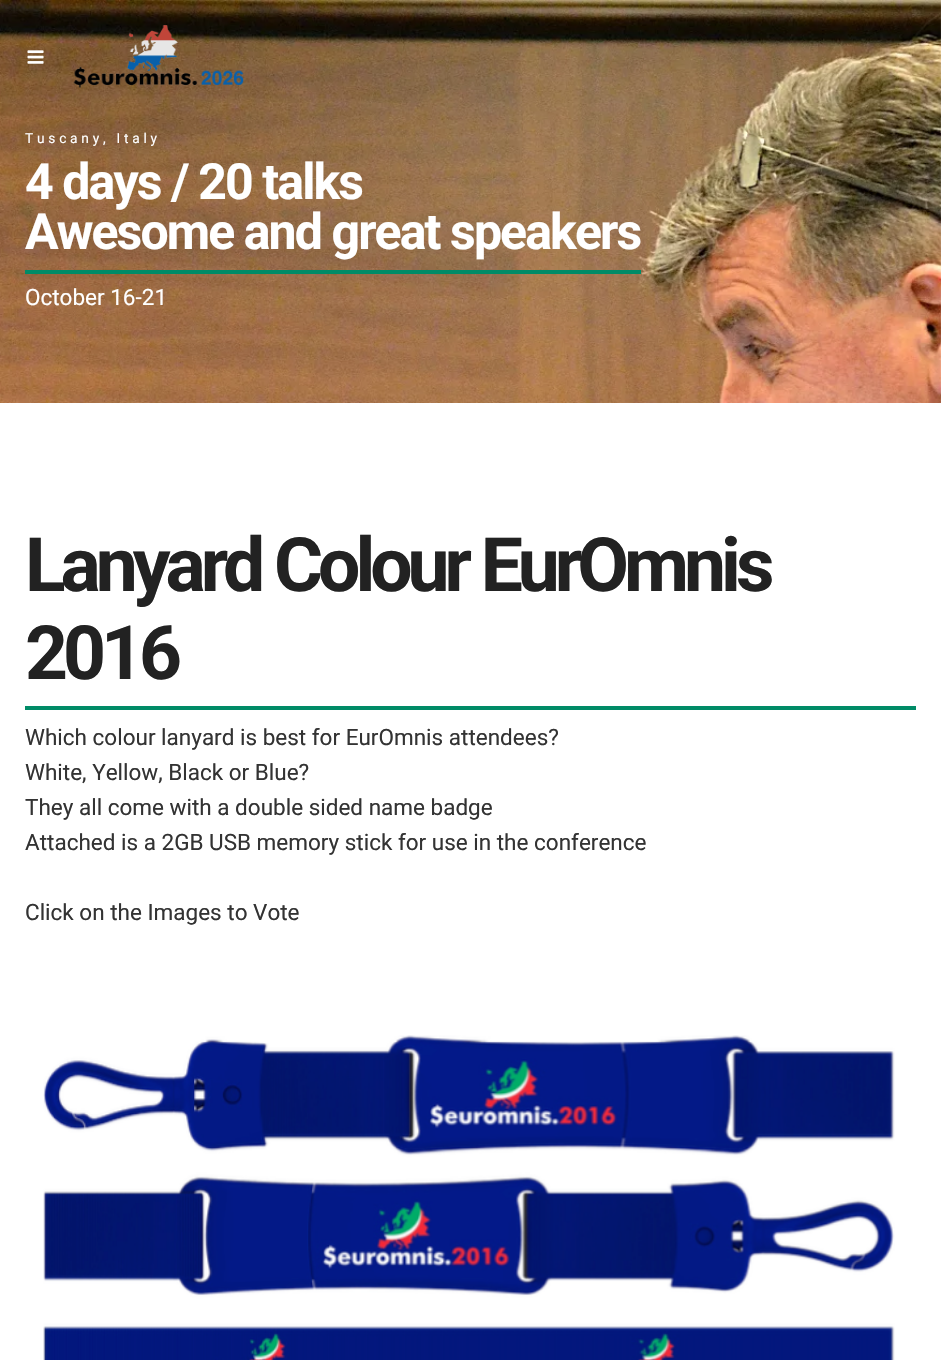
void draw(SkCanvas* canvas) {
    SkPaint paint;
    paint.setAntiAlias(true);
    auto spacedText = [&](const char* s, float x, float y, const SkFont& font, const SkPaint& ink, float letter, float word) {
        std::vector<SkGlyphID> glyphs(font.countText(s, strlen(s), SkTextEncoding::kUTF8));
        std::vector<float> xs(glyphs.size());
        font.textToGlyphs(s, strlen(s), SkTextEncoding::kUTF8, glyphs);
        font.getXPos(glyphs, xs, x);
        float extra = 0;
        for (size_t i = 0; i < glyphs.size(); i++) {
            xs[i] += extra;
            extra += letter + word * (glyphs[i] == font.unicharToGlyph(' '));
        }
        canvas->drawTextBlob(SkTextBlob::MakeFromPosHGlyphs(glyphs, xs, y, font), 0, 0, ink);
    };
    canvas->clear(0xFFFFFFFF);
    canvas->drawImageRect(SkImages::DeferredFromEncodedData(SkData::MakeFromFileName("img3.png")), SkRect::MakeXYWH(0, 0, 941, 403), SkSamplingOptions());
    canvas->drawImageRect(SkImages::DeferredFromEncodedData(SkData::MakeFromFileName("img1.png")), SkRect::MakeXYWH(27, 50, 17, 14), SkSamplingOptions());
    canvas->drawImageRect(SkImages::DeferredFromEncodedData(SkData::MakeFromFileName("img2.png")), SkRect::MakeXYWH(73, 25, 171, 63), SkSamplingOptions());
    SkFont font1(fontMgr->matchFamilyStyle("Roboto", SkFontStyle::Normal()), 13.75f);
    font1.setSubpixel(true);
    paint.setColor(0xFFFFFFFF);
    spacedText("Tuscany, Italy", 25, 143, font1, paint, 3.75f, 0);
    SkFont font2(fontMgr->matchFamilyStyle("Roboto", SkFontStyle::Bold()), 50);
    font2.setSubpixel(true);
    spacedText("4 days / 20 talks", 25, 199, font2, paint, -1.9f, 0);
    spacedText("Awesome and great speakers", 25, 249, font2, paint, -1.9f, 0);
    paint.setColor(0xFF008B67);
    canvas->drawRect(SkRect::MakeXYWH(25, 270, 616, 4), paint);
    SkFont font3(fontMgr->matchFamilyStyle("Roboto", SkFontStyle::Normal()), 22.5f);
    font3.setSubpixel(true);
    paint.setColor(0xFFFFFFFF);
    canvas->drawString("October 16-21", 25, 305, font3, paint);
    SkFont font4(fontMgr->matchFamilyStyle("Roboto", SkFontStyle::Bold()), 75);
    font4.setSubpixel(true);
    paint.setColor(0xFF222222);
    spacedText("Lanyard Colour EurOmnis", 25, 591, font4, paint, -5, 0);
    spacedText("2016", 25, 679, font4, paint, -5, 0);
    paint.setColor(0xFF008B67);
    canvas->drawRect(SkRect::MakeXYWH(25, 706, 891, 4), paint);
    paint.setColor(0xFF333333);
    canvas->drawString("Which colour lanyard is best for EurOmnis attendees?", 25, 745, font3, paint);
    canvas->drawString("White, Yellow, Black or Blue?", 25, 780, font3, paint);
    canvas->drawString("They all come with a double sided name badge", 25, 815, font3, paint);
    canvas->drawString("Attached is a 2GB USB memory stick for use in the conference", 25, 850, font3, paint);
    canvas->drawString("Click on the Images to Vote", 25, 920, font3, paint);
    canvas->drawImageRect(SkImages::DeferredFromEncodedData(SkData::MakeFromFileName("img4.png")), SkRect::MakeXYWH(43, 1035, 852, 325), SkSamplingOptions());
}
